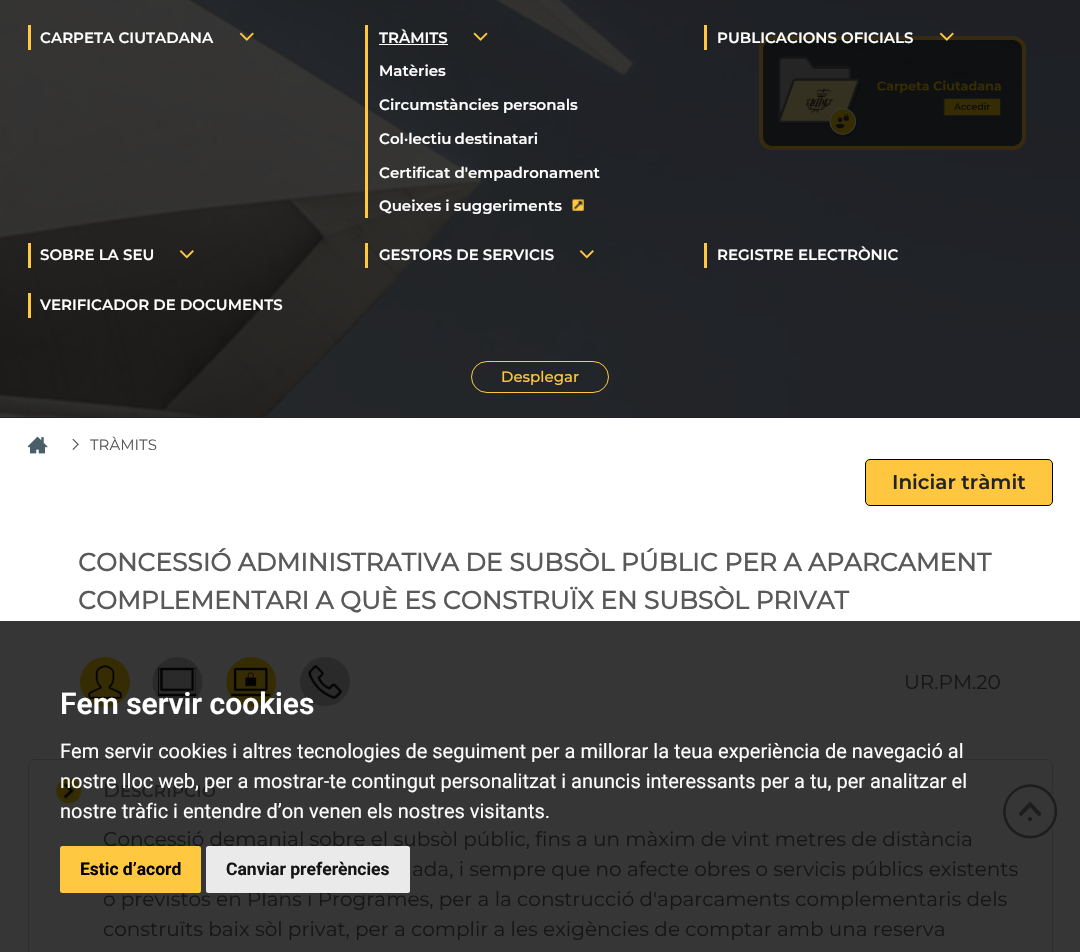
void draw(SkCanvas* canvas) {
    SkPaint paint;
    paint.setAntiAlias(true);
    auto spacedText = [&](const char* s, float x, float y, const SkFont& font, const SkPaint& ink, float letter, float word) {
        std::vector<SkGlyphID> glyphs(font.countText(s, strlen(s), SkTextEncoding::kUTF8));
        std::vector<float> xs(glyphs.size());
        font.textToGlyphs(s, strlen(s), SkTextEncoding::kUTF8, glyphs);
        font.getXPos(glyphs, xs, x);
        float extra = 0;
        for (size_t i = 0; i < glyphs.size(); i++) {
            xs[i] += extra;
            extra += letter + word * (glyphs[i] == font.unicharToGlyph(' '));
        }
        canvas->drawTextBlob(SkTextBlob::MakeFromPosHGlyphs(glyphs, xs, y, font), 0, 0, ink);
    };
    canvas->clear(0xFFFFFFFF);
    paint.setColor(0xFF363636);
    canvas->drawRect(SkRect::MakeXYWH(0, 621, 1080, 331), paint);
    paint.setColor(0xFF212328);
    canvas->drawRect(SkRect::MakeXYWH(0, 417, 1080, 1), paint);
    canvas->drawImageRect(SkImages::DeferredFromEncodedData(SkData::MakeFromFileName("img1.png")), SkRect::MakeXYWH(0, 0, 1080, 417), SkSamplingOptions());
    paint.setColor(0x99040404);
    canvas->drawRoundRect(SkRect::MakeXYWH(761, 38, 263, 110), 11, 11, paint);
    paint.setStyle(SkPaint::kStroke_Style);
    paint.setStrokeWidth(4);
    paint.setColor(0xFF362B10);
    canvas->drawRoundRect(SkRect::MakeXYWH(761, 38, 263, 110), 11, 11, paint);
    canvas->drawImageRect(SkImages::DeferredFromEncodedData(SkData::MakeFromFileName("img2.png")), SkRect::MakeXYWH(778, 56, 223, 82), SkSamplingOptions());
    paint.setStyle(SkPaint::kFill_Style);
    paint.setColor(0xFFFFC840);
    canvas->drawRect(SkRect::MakeXYWH(28, 25, 3, 25), paint);
    SkFont font1(fontMgr->matchFamilyStyle("Montserrat", SkFontStyle(600, SkFontStyle::kNormal_Width, SkFontStyle::kUpright_Slant)), 15);
    font1.setSubpixel(true);
    paint.setColor(0xFFFFFFFF);
    canvas->drawString("CARPETA CIUTADANA", 40, 43, font1, paint);
    canvas->drawImageRect(SkImages::DeferredFromEncodedData(SkData::MakeFromFileName("img3.png")), SkRect::MakeXYWH(239, 32, 15, 9), SkSamplingOptions());
    paint.setColor(0xFFFFC840);
    canvas->drawRect(SkRect::MakeXYWH(365, 25, 3, 160), paint);
    paint.setColor(0xFFFFFFFF);
    canvas->drawString("TRÀMITS", 379, 43, font1, paint);
    canvas->drawRect(SkRect::MakeXYWH(379, 44, 69, 1), paint);
    canvas->drawImageRect(SkImages::DeferredFromEncodedData(SkData::MakeFromFileName("img4.png")), SkRect::MakeXYWH(473, 32, 15, 9), SkSamplingOptions());
    canvas->drawString("Matèries", 379, 76, font1, paint);
    canvas->drawString("Circumstàncies personals", 379, 110, font1, paint);
    spacedText("Col·lectiu destinatari", 379, 144, font1, paint, 0, -1);
    canvas->drawString("Certificat d'empadronament", 379, 178, font1, paint);
    canvas->drawImageRect(SkImages::DeferredFromEncodedData(SkData::MakeFromFileName("img5.png")), SkRect::MakeXYWH(572, 199, 12, 12), SkSamplingOptions());
    paint.setColor(0xFFFFC840);
    canvas->drawRect(SkRect::MakeXYWH(365, 185, 3, 33), paint);
    paint.setColor(0xFFFFFFFF);
    canvas->drawString("Queixes i suggeriments", 379, 211, font1, paint);
    paint.setColor(0xFFFFC840);
    canvas->drawRect(SkRect::MakeXYWH(704, 25, 3, 25), paint);
    paint.setColor(0xFFFFFFFF);
    canvas->drawString("PUBLICACIONS OFICIALS", 717, 43, font1, paint);
    canvas->drawImageRect(SkImages::DeferredFromEncodedData(SkData::MakeFromFileName("img6.png")), SkRect::MakeXYWH(939, 32, 15, 9), SkSamplingOptions());
    paint.setColor(0xFFFFC840);
    canvas->drawRect(SkRect::MakeXYWH(28, 243, 3, 25), paint);
    paint.setColor(0xFFFFFFFF);
    canvas->drawString("SOBRE LA SEU", 40, 260, font1, paint);
    canvas->drawImageRect(SkImages::DeferredFromEncodedData(SkData::MakeFromFileName("img7.png")), SkRect::MakeXYWH(179, 250, 15, 9), SkSamplingOptions());
    paint.setColor(0xFFFFC840);
    canvas->drawRect(SkRect::MakeXYWH(365, 243, 3, 25), paint);
    paint.setColor(0xFFFFFFFF);
    canvas->drawString("GESTORS DE SERVICIS", 379, 260, font1, paint);
    canvas->drawImageRect(SkImages::DeferredFromEncodedData(SkData::MakeFromFileName("img8.png")), SkRect::MakeXYWH(579, 250, 15, 9), SkSamplingOptions());
    paint.setColor(0xFFFFC840);
    canvas->drawRect(SkRect::MakeXYWH(704, 243, 3, 25), paint);
    paint.setColor(0xFFFFFFFF);
    canvas->drawString("REGISTRE ELECTRÒNIC", 717, 260, font1, paint);
    paint.setColor(0xFFFFC840);
    canvas->drawRect(SkRect::MakeXYWH(28, 293, 3, 25), paint);
    paint.setColor(0xFFFFFFFF);
    canvas->drawString("VERIFICADOR DE DOCUMENTS", 40, 310, font1, paint);
    paint.setStyle(SkPaint::kStroke_Style);
    paint.setStrokeWidth(1);
    paint.setColor(0xFFFFC840);
    canvas->drawRoundRect(SkRect::MakeXYWH(471.5f, 361.5f, 137, 31), 15.5f, 15.5f, paint);
    SkFont font2(fontMgr->matchFamilyStyle("Montserrat", SkFontStyle(500, SkFontStyle::kNormal_Width, SkFontStyle::kUpright_Slant)), 15);
    font2.setSubpixel(true);
    paint.setStyle(SkPaint::kFill_Style);
    canvas->drawString("Desplegar", 501, 382, font2, paint);
    canvas->drawImageRect(SkImages::DeferredFromEncodedData(SkData::MakeFromFileName("img9.png")), SkRect::MakeXYWH(28, 436, 20, 18), SkSamplingOptions());
    canvas->drawImageRect(SkImages::DeferredFromEncodedData(SkData::MakeFromFileName("img10.png")), SkRect::MakeXYWH(72, 439, 7, 11), SkSamplingOptions());
    SkFont font3(fontMgr->matchFamilyStyle("Montserrat", SkFontStyle::Normal()), 15);
    font3.setSubpixel(true);
    paint.setColor(0xFF595959);
    canvas->drawString("TRÀMITS", 90, 450, font3, paint);
    paint.setColor(0xFFFFC73F);
    canvas->drawRoundRect(SkRect::MakeXYWH(865.5f, 459.5f, 187, 46), 4.5f, 4.5f, paint);
    paint.setStyle(SkPaint::kStroke_Style);
    paint.setColor(0xFF000000);
    canvas->drawRoundRect(SkRect::MakeXYWH(865.5f, 459.5f, 187, 46), 4.5f, 4.5f, paint);
    SkFont font4(fontMgr->matchFamilyStyle("Montserrat", SkFontStyle(600, SkFontStyle::kNormal_Width, SkFontStyle::kUpright_Slant)), 20);
    font4.setSubpixel(true);
    paint.setStyle(SkPaint::kFill_Style);
    paint.setColor(0xFF212529);
    canvas->drawString("Iniciar tràmit", 892, 489, font4, paint);
    SkFont font5(fontMgr->matchFamilyStyle("Montserrat", SkFontStyle::Bold()), 25);
    font5.setSubpixel(true);
    paint.setColor(0xFF595959);
    canvas->drawString("CONCESSIÓ ADMINISTRATIVA DE SUBSÒL PÚBLIC PER A APARCAMENT", 78, 571, font5, paint);
    canvas->drawString("COMPLEMENTARI A QUÈ ES CONSTRUÏX EN SUBSÒL PRIVAT", 78, 609, font5, paint);
    canvas->drawImageRect(SkImages::DeferredFromEncodedData(SkData::MakeFromFileName("img11.png")), SkRect::MakeXYWH(80, 657, 50, 50), SkSamplingOptions());
    canvas->drawImageRect(SkImages::DeferredFromEncodedData(SkData::MakeFromFileName("img12.png")), SkRect::MakeXYWH(152, 657, 51, 50), SkSamplingOptions());
    canvas->drawImageRect(SkImages::DeferredFromEncodedData(SkData::MakeFromFileName("img13.png")), SkRect::MakeXYWH(226, 657, 51, 50), SkSamplingOptions());
    canvas->drawImageRect(SkImages::DeferredFromEncodedData(SkData::MakeFromFileName("img14.png")), SkRect::MakeXYWH(300, 657, 50, 50), SkSamplingOptions());
    SkFont font6(fontMgr->matchFamilyStyle("Montserrat", SkFontStyle::Normal()), 20);
    font6.setSubpixel(true);
    paint.setColor(0xFF151515);
    canvas->drawString("UR.PM.20", 904, 689, font6, paint);
    paint.setStyle(SkPaint::kStroke_Style);
    paint.setColor(0xFF2E2E2E);
    canvas->drawRoundRect(SkRect::MakeXYWH(28.5f, 759.5f, 1024, 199), 5.5f, 5.5f, paint);
    canvas->drawImageRect(SkImages::DeferredFromEncodedData(SkData::MakeFromFileName("img15.png")), SkRect::MakeXYWH(56, 778, 26, 26), SkSamplingOptions());
    SkFont font7(fontMgr->matchFamilyStyle("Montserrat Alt", SkFontStyle::Bold()), 20);
    font7.setSubpixel(true);
    paint.setStyle(SkPaint::kFill_Style);
    paint.setColor(0xFF1D1D1D);
    canvas->drawString("Descripció", 103, 797, font7, paint);
    paint.setColor(0xFF151515);
    canvas->drawString("Concessió demanial sobre el subsòl públic, fins a un màxim de vint metres de distància", 103, 846, font6, paint);
    canvas->drawString("ada, i sempre que no afecte obres o servicis públics existents", 412, 876, font6, paint);
    canvas->drawString("o previstos en Plans i Programes, per a la construcció d'aparcaments complementaris dels", 103, 906, font6, paint);
    canvas->drawString("construïts baix sòl privat, per a complir a les exigències de comptar amb una reserva", 103, 936, font6, paint);
    paint.setColor(0xCC363636);
    canvas->drawCircle(1031, 812, 28, paint);
    canvas->drawImageRect(SkImages::DeferredFromEncodedData(SkData::MakeFromFileName("img16.png")), SkRect::MakeXYWH(1003, 784, 55, 55), SkSamplingOptions());
    SkFont font8(fontMgr->matchFamilyStyle("Roboto", SkFontStyle(600, SkFontStyle::kNormal_Width, SkFontStyle::kUpright_Slant)), 30);
    font8.setSubpixel(true);
    paint.setColor(0xFFFFFFFF);
    canvas->drawString("Fem servir cookies", 60, 714, font8, paint);
    SkFont font9(fontMgr->matchFamilyStyle("Roboto", SkFontStyle::Normal()), 20);
    font9.setSubpixel(true);
    canvas->drawString("Fem servir cookies i altres tecnologies de seguiment per a millorar la teua experiència de navegació al", 60, 758, font9, paint);
    canvas->drawString("nostre lloc web, per a mostrar-te contingut personalitzat i anuncis interessants per a tu, per analitzar el", 60, 788, font9, paint);
    canvas->drawString("nostre tràfic i entendre d’on venen els nostres visitants.", 60, 818, font9, paint);
    paint.setColor(0xFFFFC840);
    canvas->drawRoundRect(SkRect::MakeXYWH(60, 846, 141, 47), 2.5f, 2.5f, paint);
    SkFont font10(fontMgr->matchFamilyStyle("Roboto", SkFontStyle::Bold()), 17.5f);
    font10.setSubpixel(true);
    paint.setColor(0xFF000000);
    canvas->drawString("Estic d’acord", 80, 875, font10, paint);
    paint.setColor(0xFFEAEAEA);
    canvas->drawRoundRect(SkRect::MakeXYWH(206, 846, 204, 47), 2.5f, 2.5f, paint);
    paint.setColor(0xFF151515);
    canvas->drawString("Canviar preferències", 226, 875, font10, paint);
}
